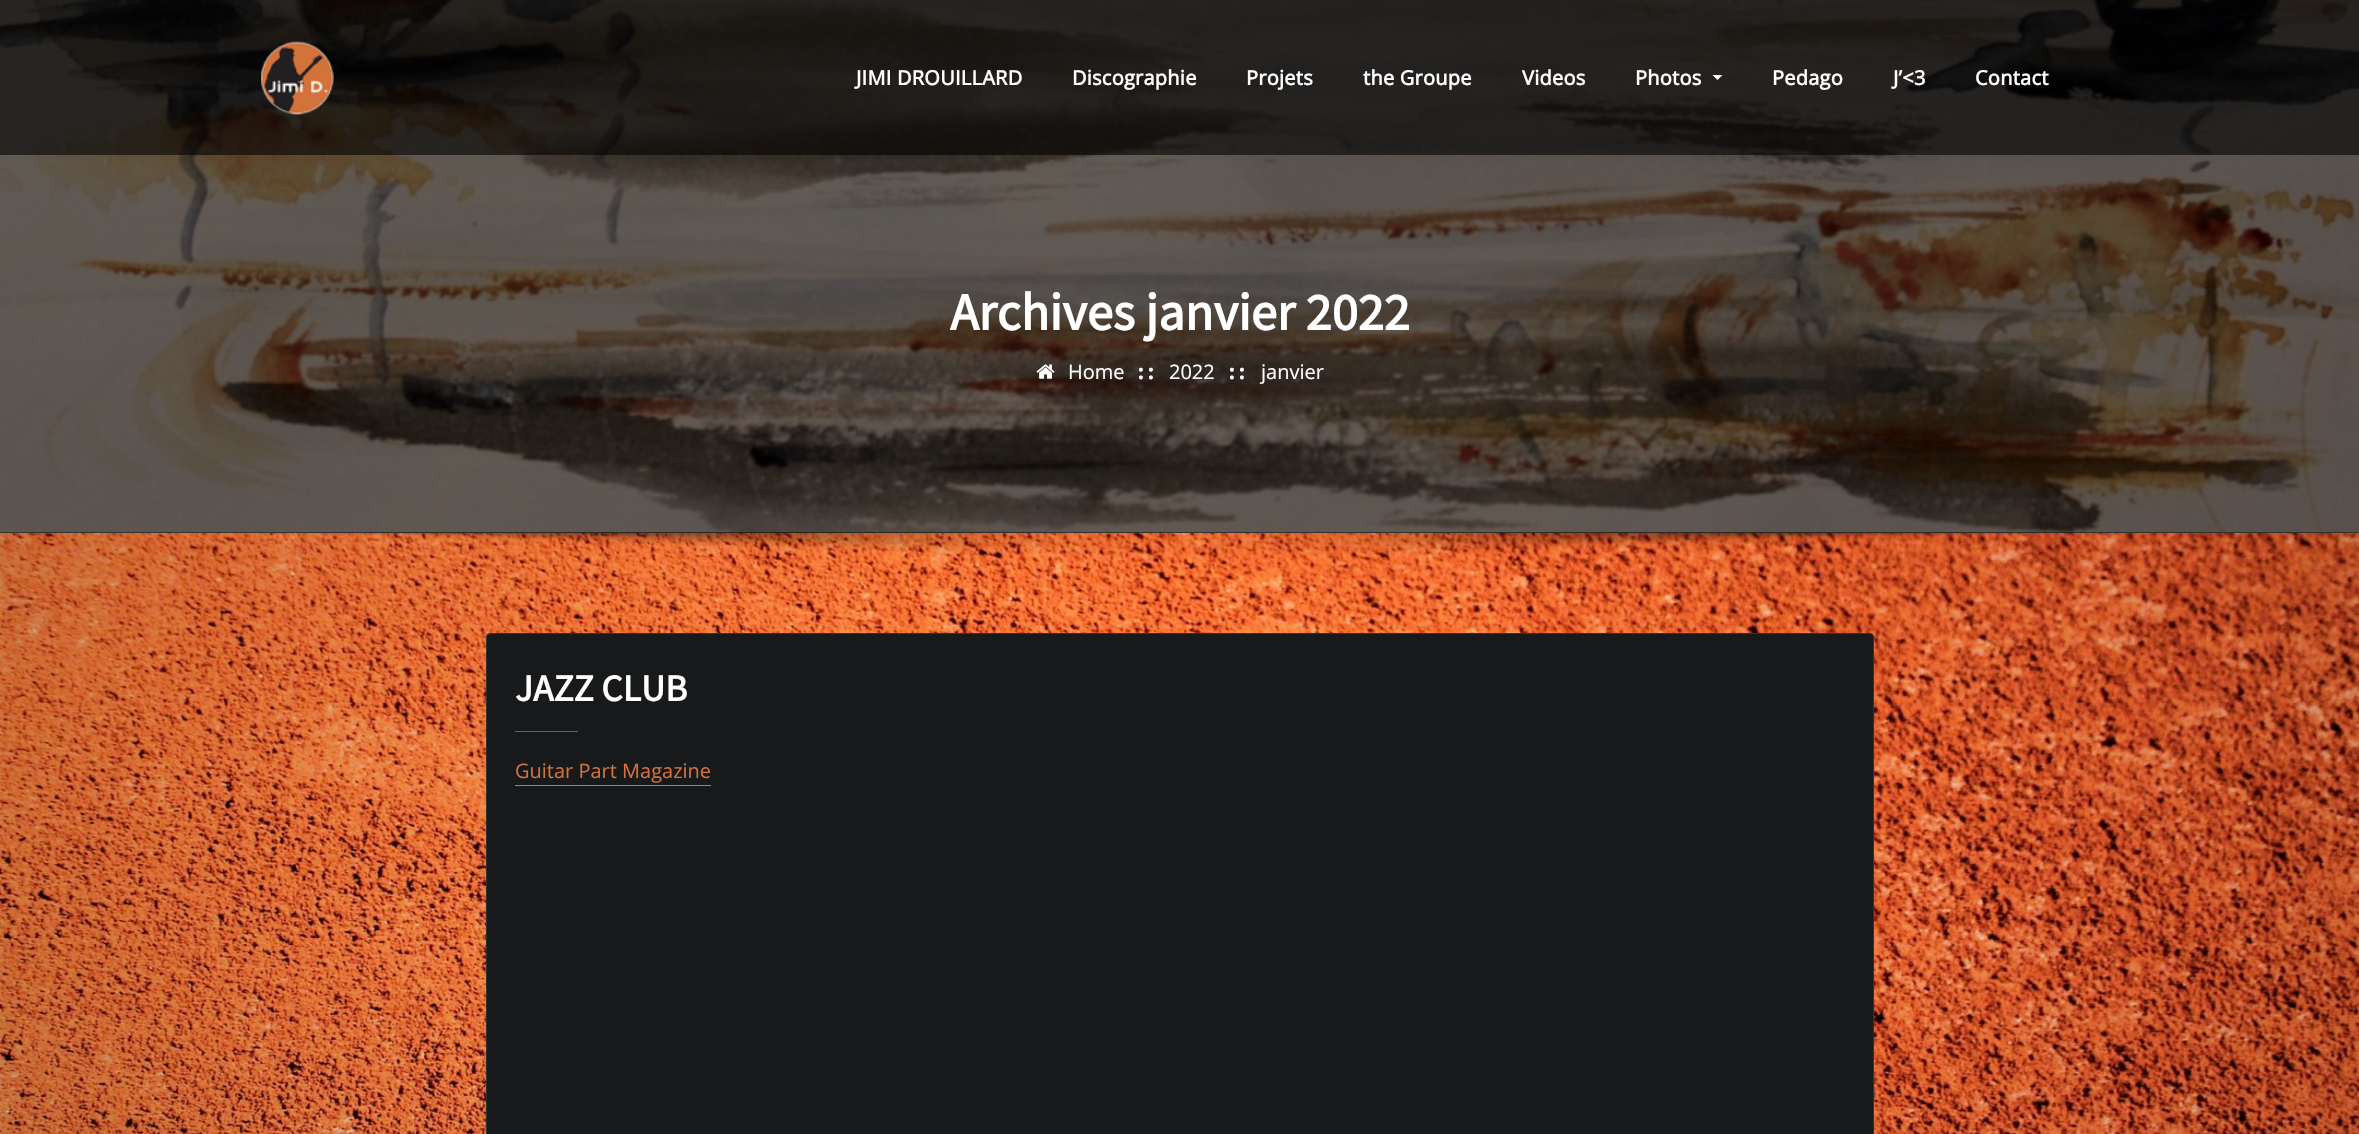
void draw(SkCanvas* canvas) {
    SkPaint paint;
    paint.setAntiAlias(true);
    auto spacedText = [&](const char* s, float x, float y, const SkFont& font, const SkPaint& ink, float letter, float word) {
        std::vector<SkGlyphID> glyphs(font.countText(s, strlen(s), SkTextEncoding::kUTF8));
        std::vector<float> xs(glyphs.size());
        font.textToGlyphs(s, strlen(s), SkTextEncoding::kUTF8, glyphs);
        font.getXPos(glyphs, xs, x);
        float extra = 0;
        for (size_t i = 0; i < glyphs.size(); i++) {
            xs[i] += extra;
            extra += letter + word * (glyphs[i] == font.unicharToGlyph(' '));
        }
        canvas->drawTextBlob(SkTextBlob::MakeFromPosHGlyphs(glyphs, xs, y, font), 0, 0, ink);
    };
    canvas->clear(0xFFFFFFFF);
    canvas->drawImageRect(SkImages::DeferredFromEncodedData(SkData::MakeFromFileName("img1.png")), SkRect::MakeXYWH(0, 533, 2359, 601), SkSamplingOptions());
    paint.setColor(0xFF17212C);
    canvas->drawRect(SkRect::MakeXYWH(0, 532, 2359, 1), paint);
    canvas->drawImageRect(SkImages::DeferredFromEncodedData(SkData::MakeFromFileName("img3.png")), SkRect::MakeXYWH(0, 0, 2359, 533), SkSamplingOptions());
    paint.setColor(0x99000000);
    canvas->drawRect(SkRect::MakeXYWH(0, 0, 2359, 533), paint);
    canvas->drawRect(SkRect::MakeXYWH(0, 0, 2359, 155), paint);
    canvas->drawImageRect(SkImages::DeferredFromEncodedData(SkData::MakeFromFileName("img2.png")), SkRect::MakeXYWH(261, 41, 73, 74), SkSamplingOptions());
    SkFont font1(fontMgr->matchFamilyStyle("Open Sans", SkFontStyle::Bold()), 20);
    font1.setSubpixel(true);
    paint.setColor(0xFFFFFFFF);
    spacedText("JIMI DROUILLARD", 856, 85, font1, paint, 0.25f, 0);
    spacedText("Discographie", 1072, 85, font1, paint, 0.25f, 0);
    spacedText("Projets", 1246, 85, font1, paint, 0.25f, 0);
    spacedText("the Groupe", 1363, 85, font1, paint, 0.25f, 0);
    spacedText("Videos", 1522, 85, font1, paint, 0.25f, 0);
    spacedText("Photos", 1635, 85, font1, paint, 0.25f, 0);
    canvas->drawPath(SkPathBuilder().moveTo(1712.5f, 75).lineTo(1722.5f, 75).lineTo(1717.5f, 80).close().detach(), paint);
    spacedText("Pedago", 1772, 85, font1, paint, 0.25f, 0);
    spacedText("J’<3", 1893, 85, font1, paint, 0.25f, 0);
    spacedText("Contact", 1975, 85, font1, paint, 0.25f, 0);
    SkFont font2(fontMgr->matchFamilyStyle("Source Sans Pro", SkFontStyle::Bold()), 52.5f);
    font2.setSubpixel(true);
    canvas->drawString("Archives janvier 2022", 950, 330, font2, paint);
    canvas->drawImageRect(SkImages::DeferredFromEncodedData(SkData::MakeFromFileName("img4.png")), SkRect::MakeXYWH(1036, 364, 19, 15), SkSamplingOptions());
    SkFont font3(fontMgr->matchFamilyStyle("Open Sans", SkFontStyle::Normal()), 20);
    font3.setSubpixel(true);
    canvas->drawString("Home", 1068, 379, font3, paint);
    SkFont font4(fontMgr->matchFamilyStyle("Liberation Serif", SkFontStyle::Bold()), 24);
    font4.setSubpixel(true);
    spacedText("::", 1137, 379, font4, paint, 2, 0);
    canvas->drawString("2022", 1169, 379, font3, paint);
    spacedText("::", 1228, 379, font4, paint, 2, 0);
    canvas->drawString("janvier", 1261, 379, font3, paint);
    canvas->drawImageRect(SkImages::DeferredFromEncodedData(SkData::MakeFromFileName("img5.png")), SkRect::MakeXYWH(253, 532, 1853, 23), SkSamplingOptions());
    paint.setColor(0xFF18191B);
    canvas->drawRoundRect(SkRect::MakeXYWH(486.5f, 633.5f, 1387, 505), 3.5f, 3.5f, paint);
    paint.setStyle(SkPaint::kStroke_Style);
    paint.setStrokeWidth(1);
    paint.setColor(0xFF333333);
    canvas->drawRoundRect(SkRect::MakeXYWH(486.5f, 633.5f, 1387, 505), 3.5f, 3.5f, paint);
    SkFont font5(fontMgr->matchFamilyStyle("Source Sans Pro", SkFontStyle::Bold()), 37.5f);
    font5.setSubpixel(true);
    paint.setStyle(SkPaint::kFill_Style);
    paint.setColor(0xFFFFFFFF);
    canvas->drawString("JAZZ CLUB", 515, 701, font5, paint);
    paint.setColor(0xFF626364);
    canvas->drawRect(SkRect::MakeXYWH(515, 731, 63, 1), paint);
    paint.setColor(0xFFD3723B);
    canvas->drawString("Guitar Part Magazine", 515, 778, font3, paint);
    canvas->drawRect(SkRect::MakeXYWH(515, 785, 196, 1), paint);
}
